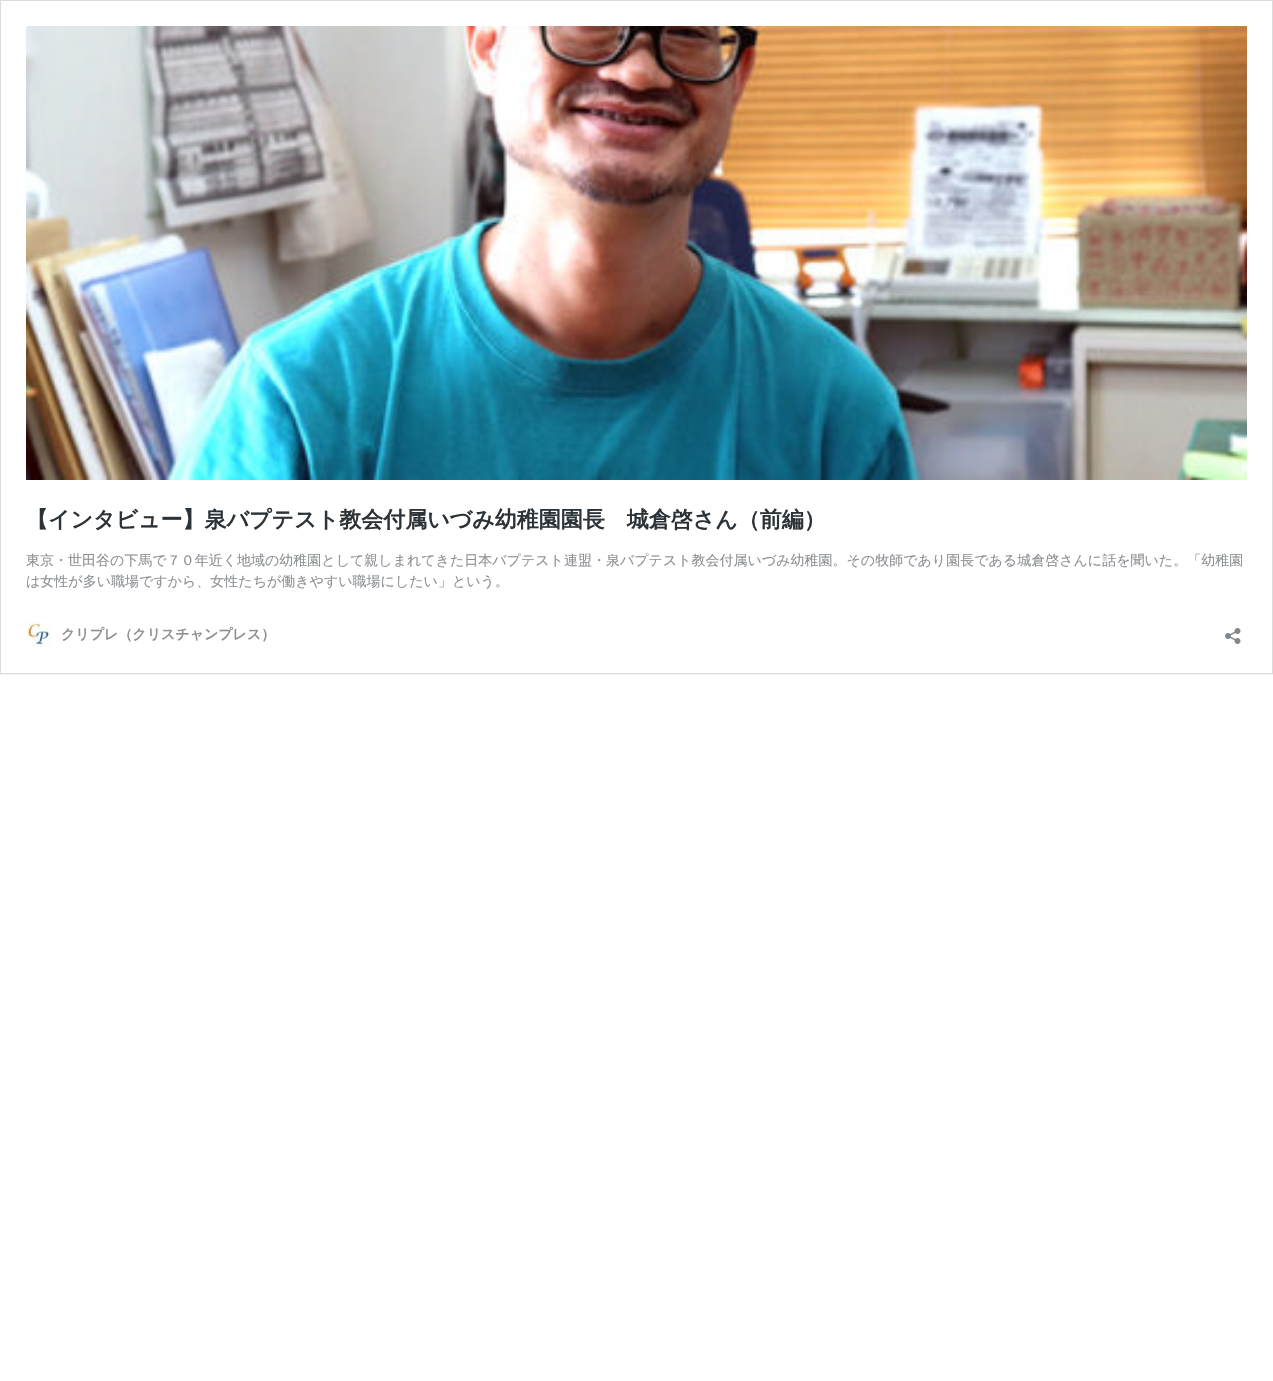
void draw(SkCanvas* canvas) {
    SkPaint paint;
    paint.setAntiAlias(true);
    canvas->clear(0xFFFFFFFF);
    canvas->save();
    canvas->clipRect(SkRect::MakeXYWH(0, 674, 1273, 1));
    paint.setColor(0x0D000000);
    paint.setMaskFilter(SkMaskFilter::MakeBlur(kNormal_SkBlurStyle, 0.5f));
    canvas->drawRect(SkRect::MakeXYWH(0, 1, 1273, 674), paint);
    paint.setMaskFilter(nullptr);
    canvas->restore();
    paint.setStyle(SkPaint::kStroke_Style);
    paint.setStrokeWidth(1);
    paint.setColor(0xFFDCDCDE);
    canvas->drawRect(SkRect::MakeXYWH(0.5f, 0.5f, 1272, 673), paint);
    canvas->drawImageRect(SkImages::DeferredFromEncodedData(SkData::MakeFromFileName("img1.png")), SkRect::MakeXYWH(26, 26, 1221, 454), SkSamplingOptions());
    SkFont font1(fontMgr->matchFamilyStyle("WenQuanYi Zen Hei", SkFontStyle::Bold()), 22);
    font1.setSubpixel(true);
    paint.setStyle(SkPaint::kFill_Style);
    paint.setColor(0xFF2C3338);
    canvas->drawString("【インタビュー】泉バプテスト教会付属いづみ幼稚園園長　城倉啓さん（前編）", 26, 527, font1, paint);
    SkFont font2(fontMgr->matchFamilyStyle("WenQuanYi Zen Hei", SkFontStyle(500, SkFontStyle::kNormal_Width, SkFontStyle::kUpright_Slant)), 14);
    font2.setSubpixel(true);
    paint.setColor(0xFF8C8F94);
    canvas->drawString("東京・世田谷の下馬で７０年近く地域の幼稚園として親しまれてきた日本バプテスト連盟・泉バプテスト教会付属いづみ幼稚園。その牧師であり園長である城倉啓さんに話を聞いた。「幼稚園", 26, 565, font2, paint);
    canvas->drawString("は女性が多い職場ですから、女性たちが働きやすい職場にしたい」という。", 26, 586, font2, paint);
    canvas->drawImageRect(SkImages::DeferredFromEncodedData(SkData::MakeFromFileName("img2.png")), SkRect::MakeXYWH(26, 621, 25, 26), SkSamplingOptions());
    SkFont font3(fontMgr->matchFamilyStyle("WenQuanYi Zen Hei", SkFontStyle::Bold()), 14);
    font3.setSubpixel(true);
    canvas->drawString("クリプレ（クリスチャンプレス）", 61, 639, font3, paint);
    canvas->drawImageRect(SkImages::DeferredFromEncodedData(SkData::MakeFromFileName("img3.png")), SkRect::MakeXYWH(1225, 628, 16, 16), SkSamplingOptions());
}
